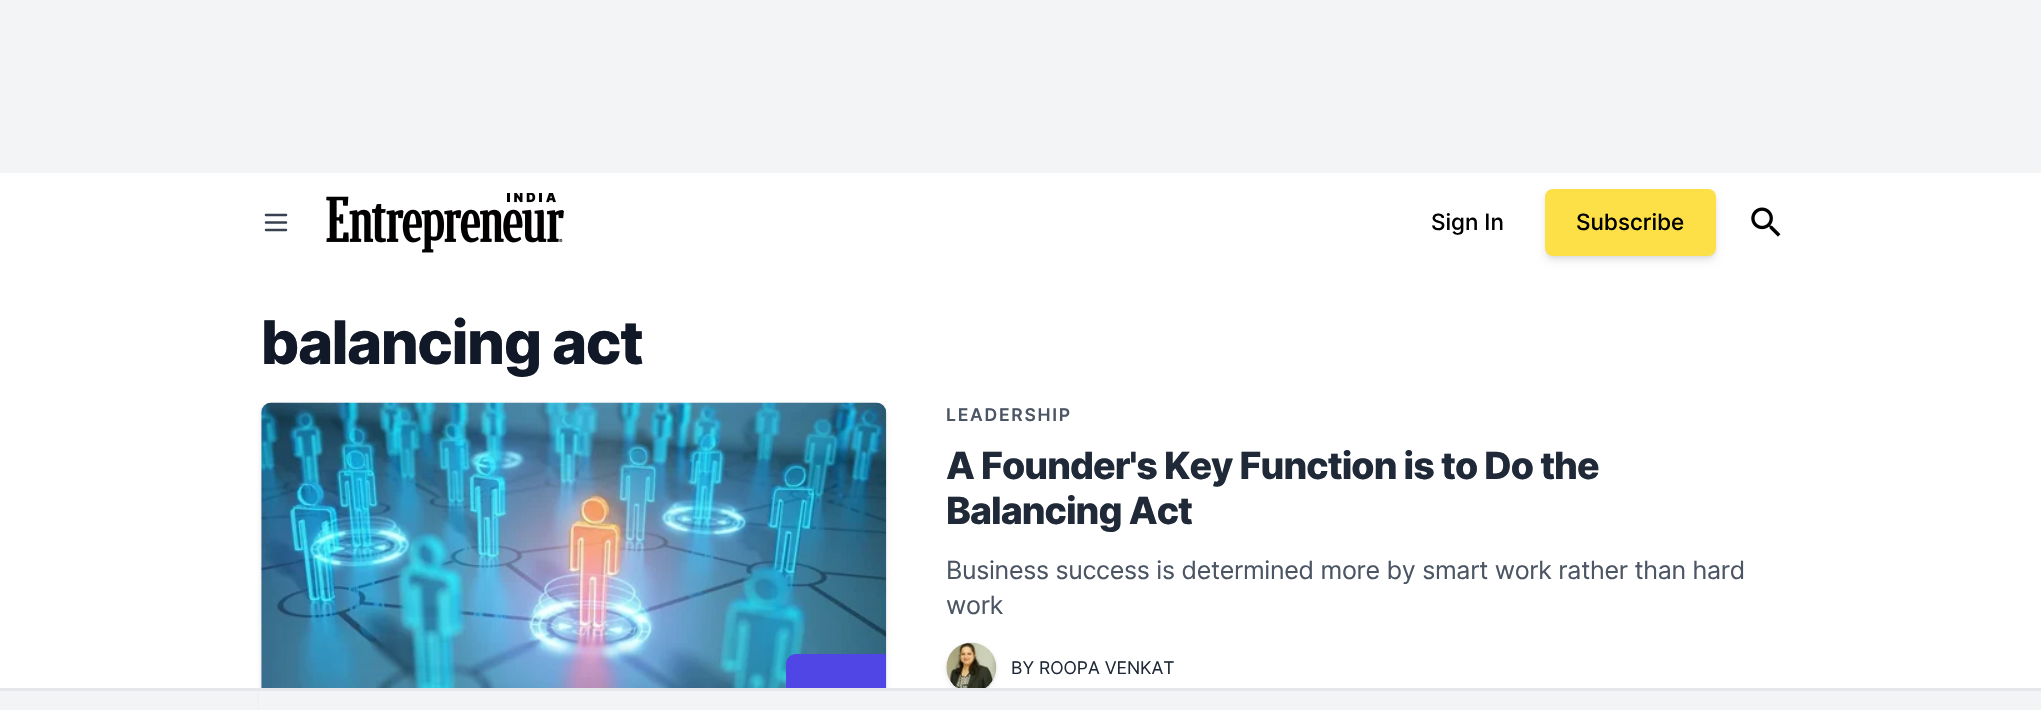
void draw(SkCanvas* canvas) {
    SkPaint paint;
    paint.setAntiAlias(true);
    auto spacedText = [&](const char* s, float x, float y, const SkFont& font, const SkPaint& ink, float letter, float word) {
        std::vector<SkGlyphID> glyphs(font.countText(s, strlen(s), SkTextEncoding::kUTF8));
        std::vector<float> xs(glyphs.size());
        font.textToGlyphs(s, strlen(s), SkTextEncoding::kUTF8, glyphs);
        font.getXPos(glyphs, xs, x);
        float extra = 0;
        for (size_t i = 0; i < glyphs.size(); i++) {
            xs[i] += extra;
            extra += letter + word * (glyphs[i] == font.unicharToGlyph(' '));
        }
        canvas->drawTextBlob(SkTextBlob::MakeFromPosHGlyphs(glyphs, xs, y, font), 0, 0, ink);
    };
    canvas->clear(0xFFF3F4F6);
    paint.setColor(0xFFFFFFFF);
    canvas->drawRect(SkRect::MakeXYWH(0, 173, 2041, 515), paint);
    paint.setStyle(SkPaint::kStroke_Style);
    paint.setStrokeWidth(2.5f);
    paint.setStrokeCap(SkPaint::kRound_Cap);
    paint.setStrokeJoin(SkPaint::kRound_Join);
    paint.setColor(0xFF374151);
    canvas->drawPath(SkPathBuilder().moveTo(266, 215).lineTo(286, 215).moveTo(266, 222.5f).lineTo(286, 222.5f).moveTo(266, 230).lineTo(286, 230).detach(), paint);
    canvas->drawImageRect(SkImages::DeferredFromEncodedData(SkData::MakeFromFileName("img1.png")), SkRect::MakeXYWH(326, 193, 238, 60), SkSamplingOptions());
    SkFont font1(fontMgr->matchFamilyStyle("Inter", SkFontStyle(500, SkFontStyle::kNormal_Width, SkFontStyle::kUpright_Slant)), 22.5f);
    font1.setSubpixel(true);
    paint.setStyle(SkPaint::kFill_Style);
    paint.setColor(0xFF000000);
    canvas->drawString("Sign In", 1431, 230, font1, paint);
    paint.setColor(0x1A000000);
    paint.setMaskFilter(SkMaskFilter::MakeBlur(kNormal_SkBlurStyle, 2.5f));
    canvas->drawRoundRect(SkRect::MakeXYWH(1548, 194, 166, 62), 5, 5, paint);
    paint.setMaskFilter(nullptr);
    paint.setMaskFilter(SkMaskFilter::MakeBlur(kNormal_SkBlurStyle, 4));
    canvas->drawRoundRect(SkRect::MakeXYWH(1546, 195, 169, 65), 6, 6, paint);
    paint.setMaskFilter(nullptr);
    paint.setColor(0xFFFDE047);
    canvas->drawRoundRect(SkRect::MakeXYWH(1545, 189, 171, 67), 8, 8, paint);
    paint.setColor(0xFF000000);
    canvas->drawString("Subscribe", 1576, 230, font1, paint);
    canvas->drawImageRect(SkImages::DeferredFromEncodedData(SkData::MakeFromFileName("img2.png")), SkRect::MakeXYWH(1751, 207, 30, 30), SkSamplingOptions());
    SkFont font2(fontMgr->matchFamilyStyle("Inter", SkFontStyle(800, SkFontStyle::kNormal_Width, SkFontStyle::kUpright_Slant)), 60);
    font2.setSubpixel(true);
    paint.setColor(0xFF111827);
    spacedText("balancing act", 261, 364, font2, paint, -1.5f, 0);
    paint.setColor(0x1A000000);
    paint.setMaskFilter(SkMaskFilter::MakeBlur(kNormal_SkBlurStyle, 2));
    canvas->drawRoundRect(SkRect::MakeXYWH(261, 404, 625, 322), 10, 10, paint);
    paint.setMaskFilter(nullptr);
    canvas->drawImageRect(SkImages::DeferredFromEncodedData(SkData::MakeFromFileName("img3.png")), SkRect::MakeXYWH(261, 402, 626, 286), SkSamplingOptions());
    paint.setColor(0xFF4F46E5);
    canvas->drawPath(SkPathBuilder().moveTo(796, 654).lineTo(886, 654).lineTo(886, 710).cubicTo(886, 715.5f, 881.5f, 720, 876, 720).lineTo(786, 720).lineTo(786, 664).cubicTo(786, 658.5f, 790.5f, 654, 796, 654).close().detach(), paint);
    SkFont font3(fontMgr->matchFamilyStyle("Inter", SkFontStyle(600, SkFontStyle::kNormal_Width, SkFontStyle::kUpright_Slant)), 17.5f);
    font3.setSubpixel(true);
    paint.setColor(0xFF4B5563);
    spacedText("LEADERSHIP", 946, 421, font3, paint, 1.75f, 0);
    SkFont font4(fontMgr->matchFamilyStyle("Inter", SkFontStyle(800, SkFontStyle::kNormal_Width, SkFontStyle::kUpright_Slant)), 37.5f);
    font4.setSubpixel(true);
    paint.setColor(0xFF1F2937);
    spacedText("A Founder's Key Function is to Do the", 946, 479, font4, paint, -0.95f, 0);
    spacedText("Balancing Act", 946, 524, font4, paint, -0.95f, 0);
    SkFont font5(fontMgr->matchFamilyStyle("Inter", SkFontStyle::Normal()), 25);
    font5.setSubpixel(true);
    paint.setColor(0xFF4B5563);
    spacedText("Business success is determined more by smart work rather than hard", 946, 579, font5, paint, -0.3f, 0);
    spacedText("work", 946, 614, font5, paint, -0.3f, 0);
    paint.setColor(0x1A000000);
    paint.setMaskFilter(SkMaskFilter::MakeBlur(kNormal_SkBlurStyle, 1));
    canvas->drawRoundRect(SkRect::MakeXYWH(948, 645, 47, 48), 23.5f, 23.5f, paint);
    paint.setMaskFilter(nullptr);
    canvas->save();
    canvas->clipPath(SkPathBuilder(SkPathFillType::kEvenOdd).moveTo(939, 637).lineTo(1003, 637).lineTo(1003, 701).lineTo(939, 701).close().moveTo(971, 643).cubicTo(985, 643, 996, 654, 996, 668).cubicTo(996, 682, 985, 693, 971, 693).cubicTo(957, 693, 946, 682, 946, 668).cubicTo(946, 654, 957, 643, 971, 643).close().detach(), true);
    paint.setMaskFilter(SkMaskFilter::MakeBlur(kNormal_SkBlurStyle, 2));
    canvas->drawRoundRect(SkRect::MakeXYWH(946, 644, 50, 50), 25, 25, paint);
    paint.setMaskFilter(nullptr);
    canvas->restore();
    canvas->drawImageRect(SkImages::DeferredFromEncodedData(SkData::MakeFromFileName("img4.png")), SkRect::MakeXYWH(946, 642, 51, 46), SkSamplingOptions());
    SkFont font6(fontMgr->matchFamilyStyle("Inter", SkFontStyle::Normal()), 17.5f);
    font6.setSubpixel(true);
    paint.setColor(0xFF1F2937);
    canvas->drawString("BY ROOPA VENKAT", 1011, 674, font6, paint);
    paint.setColor(0xFFF3F4F6);
    canvas->drawRect(SkRect::MakeXYWH(259, 691, 728, 19), paint);
    paint.setColor(0xFFE5E7EB);
    canvas->drawRect(SkRect::MakeXYWH(0, 688, 2041, 3), paint);
}
